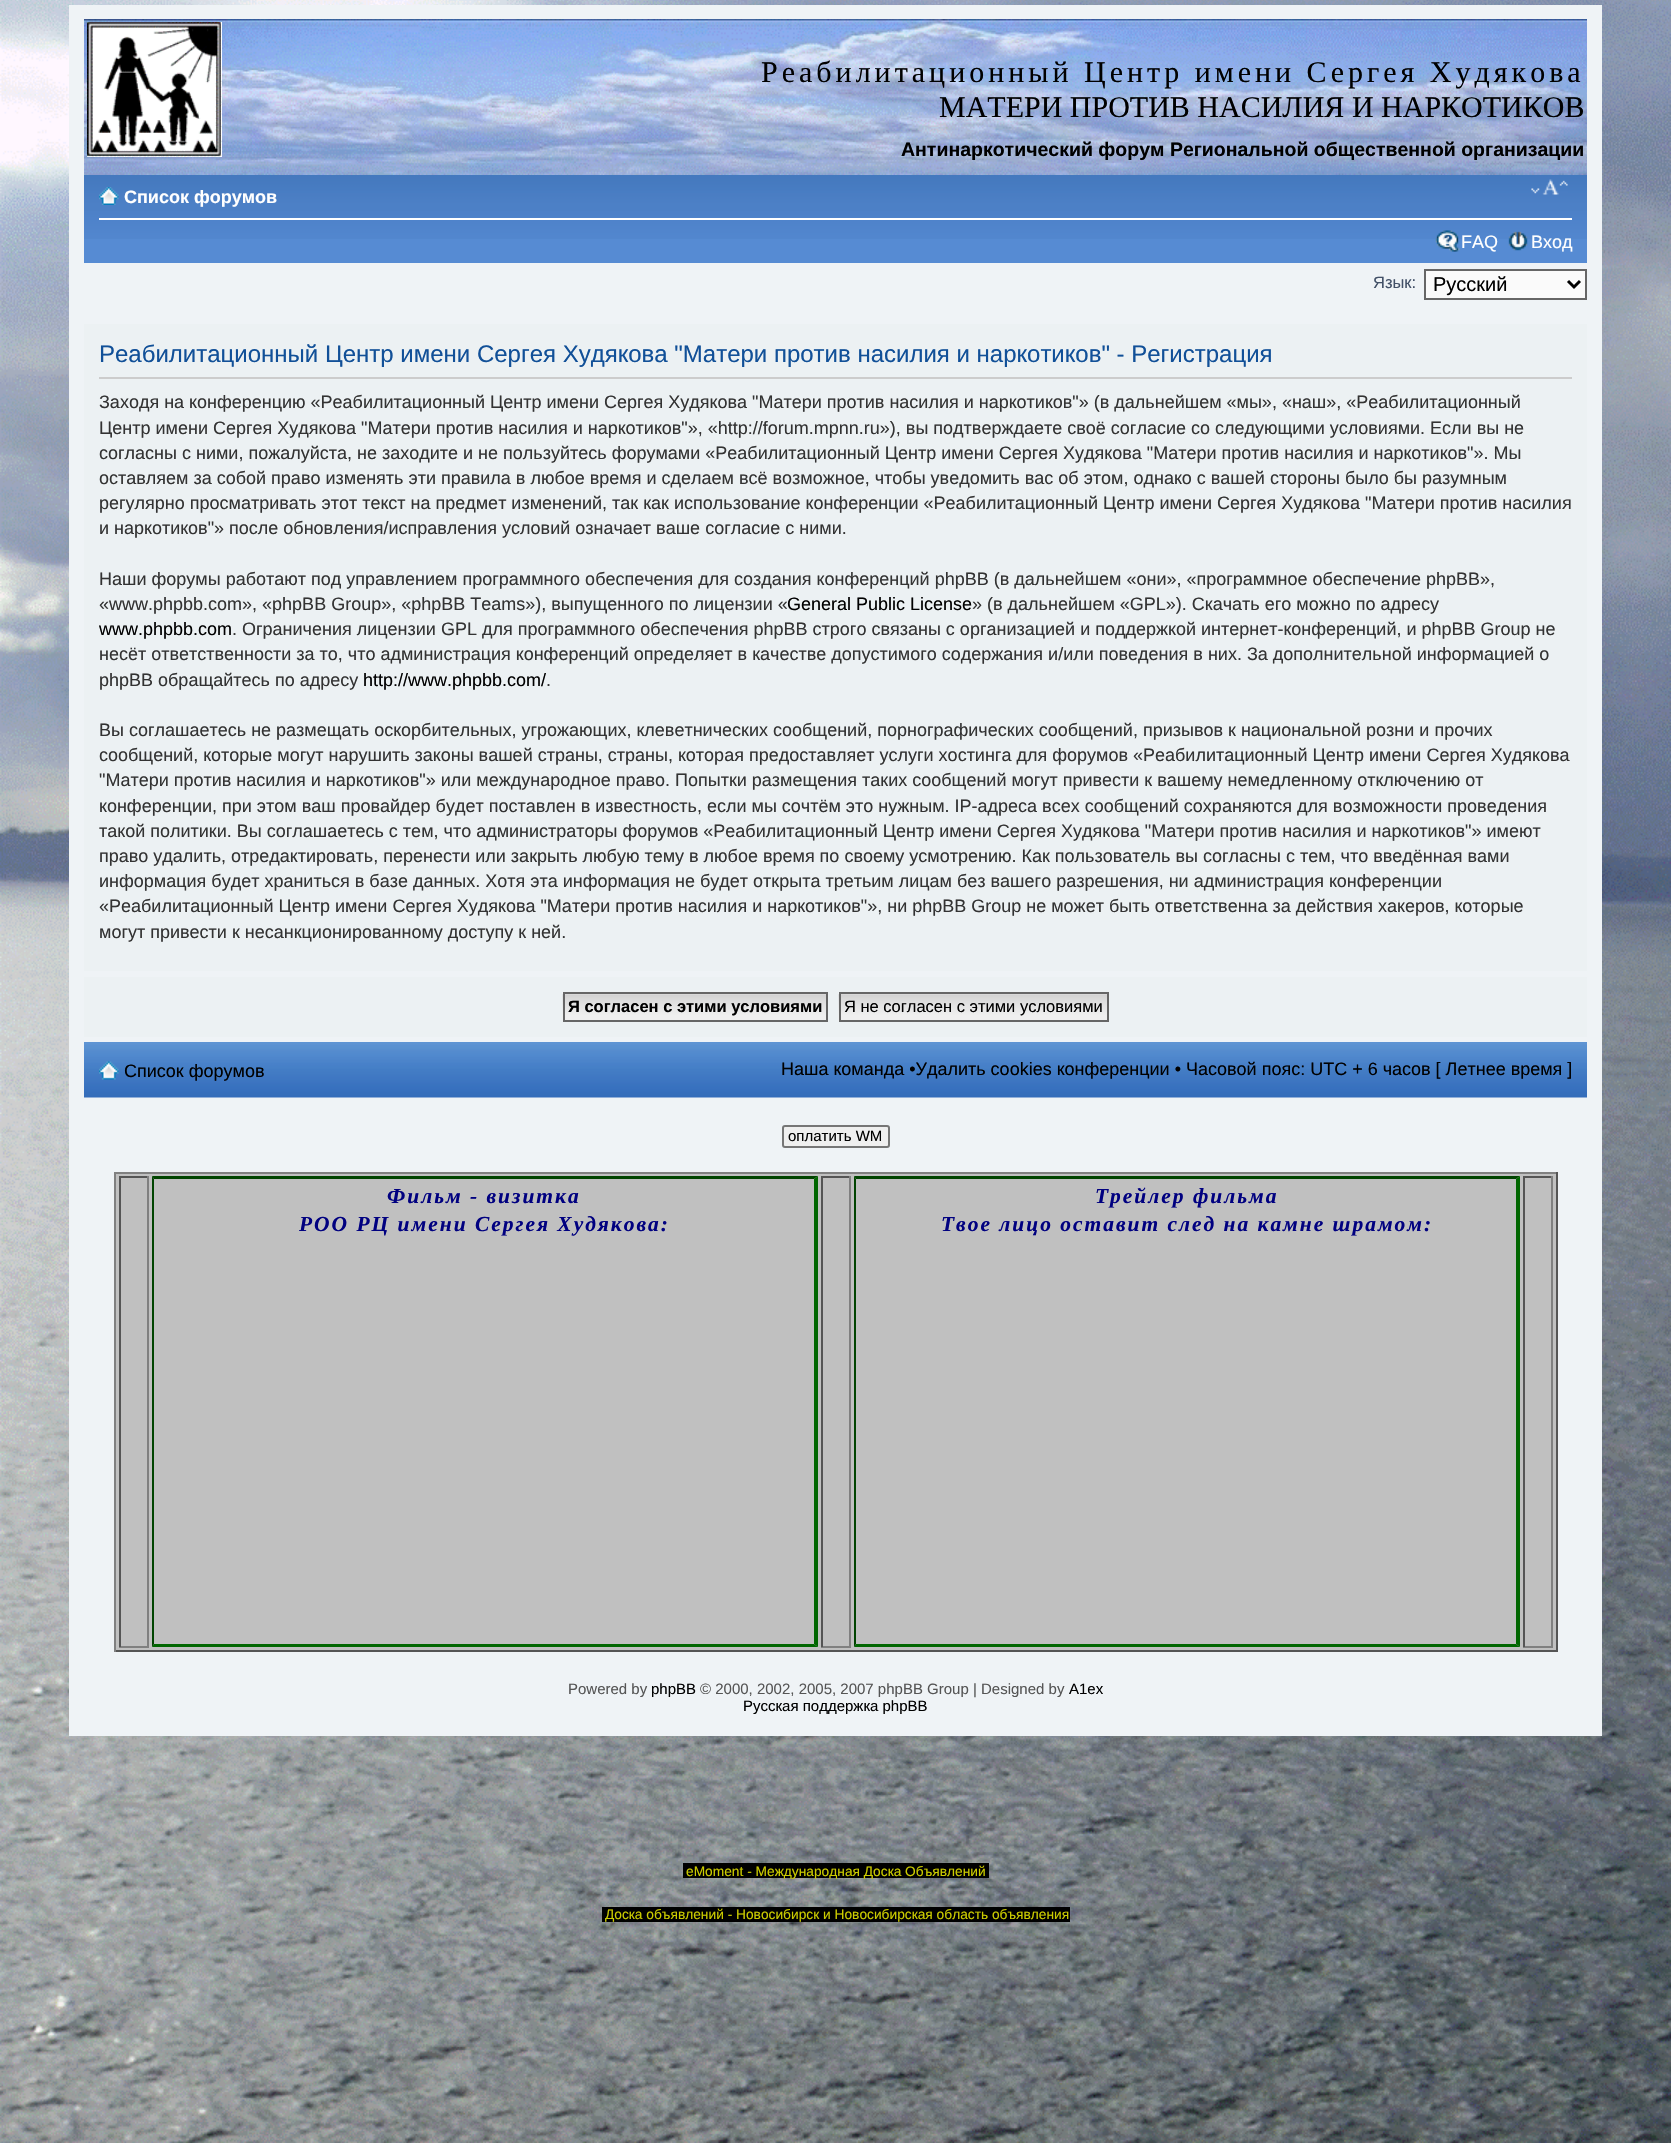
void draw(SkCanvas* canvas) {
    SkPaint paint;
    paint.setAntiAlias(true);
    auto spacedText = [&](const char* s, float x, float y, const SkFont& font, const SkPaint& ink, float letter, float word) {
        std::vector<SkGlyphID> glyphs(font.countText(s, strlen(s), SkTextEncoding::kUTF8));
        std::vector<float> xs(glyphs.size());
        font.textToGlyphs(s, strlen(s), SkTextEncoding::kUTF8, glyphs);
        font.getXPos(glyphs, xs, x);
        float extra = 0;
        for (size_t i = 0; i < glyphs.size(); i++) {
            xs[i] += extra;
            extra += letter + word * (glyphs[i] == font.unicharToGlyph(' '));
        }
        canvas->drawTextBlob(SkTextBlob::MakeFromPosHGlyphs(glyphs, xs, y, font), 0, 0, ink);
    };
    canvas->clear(0xFFFFFFFF);
    canvas->drawImageRect(SkImages::DeferredFromEncodedData(SkData::MakeFromFileName("img1.png")), SkRect::MakeXYWH(0, 0, 1671, 2143), SkSamplingOptions());
    paint.setColor(0xFFEFF3F6);
    canvas->drawRect(SkRect::MakeXYWH(69, 5, 1533, 1731), paint);
    canvas->drawImageRect(SkImages::DeferredFromEncodedData(SkData::MakeFromFileName("img2.png")), SkRect::MakeXYWH(84, 19, 1503, 156), SkSamplingOptions());
    canvas->drawImageRect(SkImages::DeferredFromEncodedData(SkData::MakeFromFileName("img3.png")), SkRect::MakeXYWH(87, 22, 135, 135), SkSamplingOptions());
    SkFont font1(fontMgr->matchFamilyStyle("Liberation Serif", SkFontStyle::Normal()), 30);
    font1.setSubpixel(true);
    paint.setColor(0xFF000000);
    spacedText("Реабилитационный Центр имени Сергея Худякова", 761, 82, font1, paint, 4, 0);
    canvas->drawString("МАТЕРИ ПРОТИВ НАСИЛИЯ И НАРКОТИКОВ", 939, 117, font1, paint);
    SkFont font2(fontMgr->matchFamilyStyle("Liberation Sans", SkFontStyle::Bold()), 19.5f);
    font2.setSubpixel(true);
    canvas->drawString("Антинаркотический форум Региональной общественной организации", 901, 156, font2, paint);
    paint.setColor(0xFF568BD3);
    canvas->drawRect(SkRect::MakeXYWH(84, 239, 1503, 24), paint);
    canvas->drawImageRect(SkImages::DeferredFromEncodedData(SkData::MakeFromFileName("img4.png")), SkRect::MakeXYWH(84, 175, 1503, 64), SkSamplingOptions());
    paint.setColor(0xFFFFFFFF);
    canvas->drawRect(SkRect::MakeXYWH(99, 218, 1473, 2), paint);
    canvas->drawImageRect(SkImages::DeferredFromEncodedData(SkData::MakeFromFileName("img5.png")), SkRect::MakeXYWH(1531, 179, 37, 16), SkSamplingOptions());
    canvas->drawImageRect(SkImages::DeferredFromEncodedData(SkData::MakeFromFileName("img6.png")), SkRect::MakeXYWH(99, 187, 20, 18), SkSamplingOptions());
    SkFont font3(fontMgr->matchFamilyStyle("Liberation Sans", SkFontStyle::Bold()), 18);
    font3.setSubpixel(true);
    canvas->drawString("Список форумов", 124, 203, font3, paint);
    canvas->drawImageRect(SkImages::DeferredFromEncodedData(SkData::MakeFromFileName("img7.png")), SkRect::MakeXYWH(1435, 230, 25, 22), SkSamplingOptions());
    SkFont font4(fontMgr->matchFamilyStyle("Liberation Sans", SkFontStyle::Normal()), 18);
    font4.setSubpixel(true);
    canvas->drawString("FAQ", 1461, 248, font4, paint);
    canvas->drawImageRect(SkImages::DeferredFromEncodedData(SkData::MakeFromFileName("img8.png")), SkRect::MakeXYWH(1508, 231, 20, 20), SkSamplingOptions());
    canvas->drawString("Вход", 1531, 248, font4, paint);
    SkFont font5(fontMgr->matchFamilyStyle("Liberation Sans", SkFontStyle::Normal()), 16.5f);
    font5.setSubpixel(true);
    paint.setColor(0xFF425067);
    canvas->drawString("Язык:", 1373, 288, font5, paint);
    paint.setColor(0xFFFAFAFA);
    canvas->drawRect(SkRect::MakeXYWH(1425, 270, 161, 29), paint);
    paint.setStyle(SkPaint::kStroke_Style);
    paint.setStrokeWidth(2);
    paint.setColor(0xFF666666);
    canvas->drawRect(SkRect::MakeXYWH(1425, 270, 161, 29), paint);
    paint.setStrokeWidth(3);
    paint.setColor(0xFF000000);
    canvas->drawPath(SkPathBuilder().moveTo(1568, 281).lineTo(1574, 287).lineTo(1580, 281).detach(), paint);
    SkFont font6(fontMgr->matchFamilyStyle("Liberation Sans", SkFontStyle::Normal()), 20);
    font6.setSubpixel(true);
    paint.setStyle(SkPaint::kFill_Style);
    canvas->drawString("Русский", 1433, 291, font6, paint);
    paint.setColor(0xFFECF1F3);
    canvas->drawRect(SkRect::MakeXYWH(84, 324, 1503, 647), paint);
    paint.setColor(0xFFCCCCCC);
    canvas->drawRect(SkRect::MakeXYWH(99, 377, 1473, 2), paint);
    SkFont font7(fontMgr->matchFamilyStyle("Liberation Sans", SkFontStyle::Normal()), 24);
    font7.setSubpixel(true);
    paint.setColor(0xFF115098);
    canvas->drawString("Реабилитационный Центр имени Сергея Худякова \"Матери против насилия и наркотиков\" - Регистрация", 99, 362, font7, paint);
    paint.setColor(0xFF333333);
    canvas->drawString("Заходя на конференцию «Реабилитационный Центр имени Сергея Худякова \"Матери против насилия и наркотиков\"» (в дальнейшем «мы», «наш», «Реабилитационный", 99, 408, font4, paint);
    canvas->drawString("Центр имени Сергея Худякова \"Матери против насилия и наркотиков\"», «http://forum.mpnn.ru»), вы подтверждаете своё согласие со следующими условиями. Если вы не", 99, 434, font4, paint);
    canvas->drawString("согласны с ними, пожалуйста, не заходите и не пользуйтесь форумами «Реабилитационный Центр имени Сергея Худякова \"Матери против насилия и наркотиков\"». Мы", 99, 459, font4, paint);
    canvas->drawString("оставляем за собой право изменять эти правила в любое время и сделаем всё возможное, чтобы уведомить вас об этом, однако с вашей стороны было бы разумным", 99, 484, font4, paint);
    canvas->drawString("регулярно просматривать этот текст на предмет изменений, так как использование конференции «Реабилитационный Центр имени Сергея Худякова \"Матери против насилия", 99, 509, font4, paint);
    canvas->drawString("и наркотиков\"» после обновления/исправления условий означает ваше согласие с ними.", 99, 534, font4, paint);
    canvas->drawString("Наши форумы работают под управлением программного обеспечения для создания конференций phpBB (в дальнейшем «они», «программное обеспечение phpBB»,", 99, 585, font4, paint);
    canvas->drawString("«www.phpbb.com», «phpBB Group», «phpBB Teams»), выпущенного по лицензии «", 99, 610, font4, paint);
    paint.setColor(0xFF000000);
    canvas->drawString("General Public License", 787, 610, font4, paint);
    paint.setColor(0xFF333333);
    canvas->drawString("» (в дальнейшем «GPL»). Скачать его можно по адресу", 972, 610, font4, paint);
    paint.setColor(0xFF000000);
    canvas->drawString("www.phpbb.com", 99, 635, font4, paint);
    paint.setColor(0xFF333333);
    canvas->drawString(". Ограничения лицензии GPL для программного обеспечения phpBB строго связаны с организацией и поддержкой интернет-конференций, и phpBB Group не", 232, 635, font4, paint);
    canvas->drawString("несёт ответственности за то, что администрация конференций определяет в качестве допустимого содержания и/или поведения в них. За дополнительной информацией о", 99, 660, font4, paint);
    canvas->drawString("phpBB обращайтесь по адресу", 99, 686, font4, paint);
    paint.setColor(0xFF000000);
    canvas->drawString("http://www.phpbb.com/", 363, 686, font4, paint);
    paint.setColor(0xFF333333);
    canvas->drawString(".", 546, 686, font4, paint);
    canvas->drawString("Вы соглашаетесь не размещать оскорбительных, угрожающих, клеветнических сообщений, порнографических сообщений, призывов к национальной розни и прочих", 99, 736, font4, paint);
    canvas->drawString("сообщений, которые могут нарушить законы вашей страны, страны, которая предоставляет услуги хостинга для форумов «Реабилитационный Центр имени Сергея Худякова", 99, 761, font4, paint);
    canvas->drawString("\"Матери против насилия и наркотиков\"» или международное право. Попытки размещения таких сообщений могут привести к вашему немедленному отключению от", 99, 786, font4, paint);
    canvas->drawString("конференции, при этом ваш провайдер будет поставлен в известность, если мы сочтём это нужным. IP-адреса всех сообщений сохраняются для возможности проведения", 99, 812, font4, paint);
    canvas->drawString("такой политики. Вы соглашаетесь с тем, что администраторы форумов «Реабилитационный Центр имени Сергея Худякова \"Матери против насилия и наркотиков\"» имеют", 99, 837, font4, paint);
    canvas->drawString("право удалить, отредактировать, перенести или закрыть любую тему в любое время по своему усмотрению. Как пользователь вы согласны с тем, что введённая вами", 99, 862, font4, paint);
    canvas->drawString("информация будет храниться в базе данных. Хотя эта информация не будет открыта третьим лицам без вашего разрешения, ни администрация конференции", 99, 887, font4, paint);
    canvas->drawString("«Реабилитационный Центр имени Сергея Худякова \"Матери против насилия и наркотиков\"», ни phpBB Group не может быть ответственна за действия хакеров, которые", 99, 912, font4, paint);
    canvas->drawString("могут привести к несанкционированному доступу к ней.", 99, 938, font4, paint);
    paint.setColor(0xFFECF1F3);
    canvas->drawRect(SkRect::MakeXYWH(84, 977, 1503, 60), paint);
    canvas->drawImageRect(SkImages::DeferredFromEncodedData(SkData::MakeFromFileName("img9.png")), SkRect::MakeXYWH(562, 992, 264, 29), SkSamplingOptions());
    paint.setStyle(SkPaint::kStroke_Style);
    paint.setStrokeWidth(2);
    paint.setColor(0xFF666666);
    canvas->drawRect(SkRect::MakeXYWH(564, 993, 263, 28), paint);
    SkFont font8(fontMgr->matchFamilyStyle("Liberation Sans", SkFontStyle::Bold()), 16.5f);
    font8.setSubpixel(true);
    paint.setStyle(SkPaint::kFill_Style);
    paint.setColor(0xFF000000);
    canvas->drawString("Я согласен с этими условиями", 568, 1012, font8, paint);
    canvas->drawImageRect(SkImages::DeferredFromEncodedData(SkData::MakeFromFileName("img10.png")), SkRect::MakeXYWH(838, 992, 269, 29), SkSamplingOptions());
    paint.setStyle(SkPaint::kStroke_Style);
    paint.setColor(0xFF666666);
    canvas->drawRect(SkRect::MakeXYWH(840, 993, 268, 28), paint);
    paint.setStyle(SkPaint::kFill_Style);
    paint.setColor(0xFF000000);
    canvas->drawString("Я не согласен с этими условиями", 844, 1012, font5, paint);
    canvas->drawImageRect(SkImages::DeferredFromEncodedData(SkData::MakeFromFileName("img11.png")), SkRect::MakeXYWH(84, 1042, 1503, 56), SkSamplingOptions());
    canvas->drawImageRect(SkImages::DeferredFromEncodedData(SkData::MakeFromFileName("img12.png")), SkRect::MakeXYWH(99, 1061, 20, 19), SkSamplingOptions());
    canvas->drawString("Список форумов", 124, 1077, font4, paint);
    canvas->drawString("Наша команда •Удалить cookies конференции • Часовой пояс: UTC + 6 часов [ Летнее время ]", 781, 1075, font4, paint);
    paint.setColor(0xFFEFEFEF);
    canvas->drawRoundRect(SkRect::MakeXYWH(783, 1126, 106, 21), 2, 2, paint);
    paint.setStyle(SkPaint::kStroke_Style);
    paint.setColor(0xFF767676);
    canvas->drawRoundRect(SkRect::MakeXYWH(783, 1126, 106, 21), 2, 2, paint);
    SkFont font9(fontMgr->matchFamilyStyle("Liberation Sans", SkFontStyle::Normal()), 15);
    font9.setSubpixel(true);
    paint.setStyle(SkPaint::kFill_Style);
    paint.setColor(0xFF000000);
    canvas->drawString("оплатить WM", 788, 1141, font9, paint);
    paint.setColor(0xFFC0C0C0);
    canvas->drawRect(SkRect::MakeXYWH(116, 1174, 1440, 476), paint);
    paint.setColor(0xFF808080);
    canvas->drawRect(SkRect::MakeXYWH(114, 1172, 1443, 2), paint);
    paint.setColor(0xFF555555);
    canvas->drawRect(SkRect::MakeXYWH(1556, 1172, 2, 480), paint);
    canvas->drawRect(SkRect::MakeXYWH(114, 1650, 1443, 2), paint);
    paint.setColor(0xFF808080);
    canvas->drawRect(SkRect::MakeXYWH(114, 1172, 2, 480), paint);
    paint.setColor(0xFF555555);
    canvas->drawRect(SkRect::MakeXYWH(119, 1176, 30, 2), paint);
    paint.setColor(0xFF808080);
    canvas->drawRect(SkRect::MakeXYWH(147, 1176, 2, 471), paint);
    canvas->drawRect(SkRect::MakeXYWH(119, 1646, 30, 2), paint);
    paint.setColor(0xFF555555);
    canvas->drawRect(SkRect::MakeXYWH(119, 1176, 2, 471), paint);
    paint.setColor(0xFF004400);
    canvas->drawPath(SkPathBuilder().moveTo(152, 1176).lineTo(818, 1176).lineTo(814, 1179).lineTo(154, 1179).close().detach(), paint);
    paint.setColor(0xFF006600);
    canvas->drawPath(SkPathBuilder().moveTo(818, 1176).lineTo(818, 1647).lineTo(814, 1644).lineTo(814, 1179).close().detach(), paint);
    canvas->drawPath(SkPathBuilder().moveTo(818, 1647).lineTo(152, 1647).lineTo(154, 1644).lineTo(814, 1644).close().detach(), paint);
    paint.setColor(0xFF004400);
    canvas->drawPath(SkPathBuilder().moveTo(152, 1647).lineTo(152, 1176).lineTo(154, 1179).lineTo(154, 1644).close().detach(), paint);
    SkFont font10(fontMgr->matchFamilyStyle("Liberation Serif", SkFontStyle::BoldItalic()), 21.45f);
    font10.setSubpixel(true);
    paint.setColor(0xFF000080);
    spacedText("Фильм - визитка", 387, 1203, font10, paint, 2, 0);
    spacedText("РОО РЦ имени Сергея Худякова:", 299, 1231, font10, paint, 2, 0);
    paint.setColor(0xFF555555);
    canvas->drawRect(SkRect::MakeXYWH(821, 1176, 30, 2), paint);
    paint.setColor(0xFF808080);
    canvas->drawRect(SkRect::MakeXYWH(849, 1176, 2, 471), paint);
    canvas->drawRect(SkRect::MakeXYWH(821, 1646, 30, 2), paint);
    paint.setColor(0xFF555555);
    canvas->drawRect(SkRect::MakeXYWH(821, 1176, 2, 471), paint);
    paint.setColor(0xFF004400);
    canvas->drawPath(SkPathBuilder().moveTo(854, 1176).lineTo(1520, 1176).lineTo(1516, 1179).lineTo(856, 1179).close().detach(), paint);
    paint.setColor(0xFF006600);
    canvas->drawPath(SkPathBuilder().moveTo(1520, 1176).lineTo(1520, 1647).lineTo(1516, 1644).lineTo(1516, 1179).close().detach(), paint);
    canvas->drawPath(SkPathBuilder().moveTo(1520, 1647).lineTo(854, 1647).lineTo(856, 1644).lineTo(1516, 1644).close().detach(), paint);
    paint.setColor(0xFF004400);
    canvas->drawPath(SkPathBuilder().moveTo(854, 1647).lineTo(854, 1176).lineTo(856, 1179).lineTo(856, 1644).close().detach(), paint);
    paint.setColor(0xFF000080);
    spacedText("Трейлер фильма", 1095, 1203, font10, paint, 2, 0);
    spacedText("Твое лицо оставит след на камне шрамом:", 941, 1231, font10, paint, 2, 0);
    paint.setColor(0xFF555555);
    canvas->drawRect(SkRect::MakeXYWH(1523, 1176, 30, 2), paint);
    paint.setColor(0xFF808080);
    canvas->drawRect(SkRect::MakeXYWH(1551, 1176, 2, 471), paint);
    canvas->drawRect(SkRect::MakeXYWH(1523, 1646, 30, 2), paint);
    paint.setColor(0xFF555555);
    canvas->drawRect(SkRect::MakeXYWH(1523, 1176, 2, 471), paint);
    canvas->drawString("Powered by", 568, 1694, font9, paint);
    paint.setColor(0xFF000000);
    canvas->drawString("phpBB", 651, 1694, font9, paint);
    paint.setColor(0xFF555555);
    canvas->drawString("© 2000, 2002, 2005, 2007 phpBB Group | Designed by", 700, 1694, font9, paint);
    paint.setColor(0xFF000000);
    canvas->drawString("A1ex", 1069, 1694, font9, paint);
    canvas->drawString("Русская поддержка phpBB", 743, 1711, font9, paint);
    canvas->drawRect(SkRect::MakeXYWH(683, 1863, 306, 15), paint);
    SkFont font11(fontMgr->matchFamilyStyle("Liberation Sans", SkFontStyle::Normal()), 13.75f);
    font11.setSubpixel(true);
    paint.setColor(0xFFCCCC00);
    canvas->drawString("eMoment - Международная Доска Объявлений", 686, 1876, font11, paint);
    paint.setColor(0xFF000000);
    canvas->drawRect(SkRect::MakeXYWH(602, 1907, 468, 15), paint);
    paint.setColor(0xFFCCCC00);
    canvas->drawString("Доска объявлений - Новосибирск и Новосибирская область объявления", 605, 1919, font11, paint);
}
